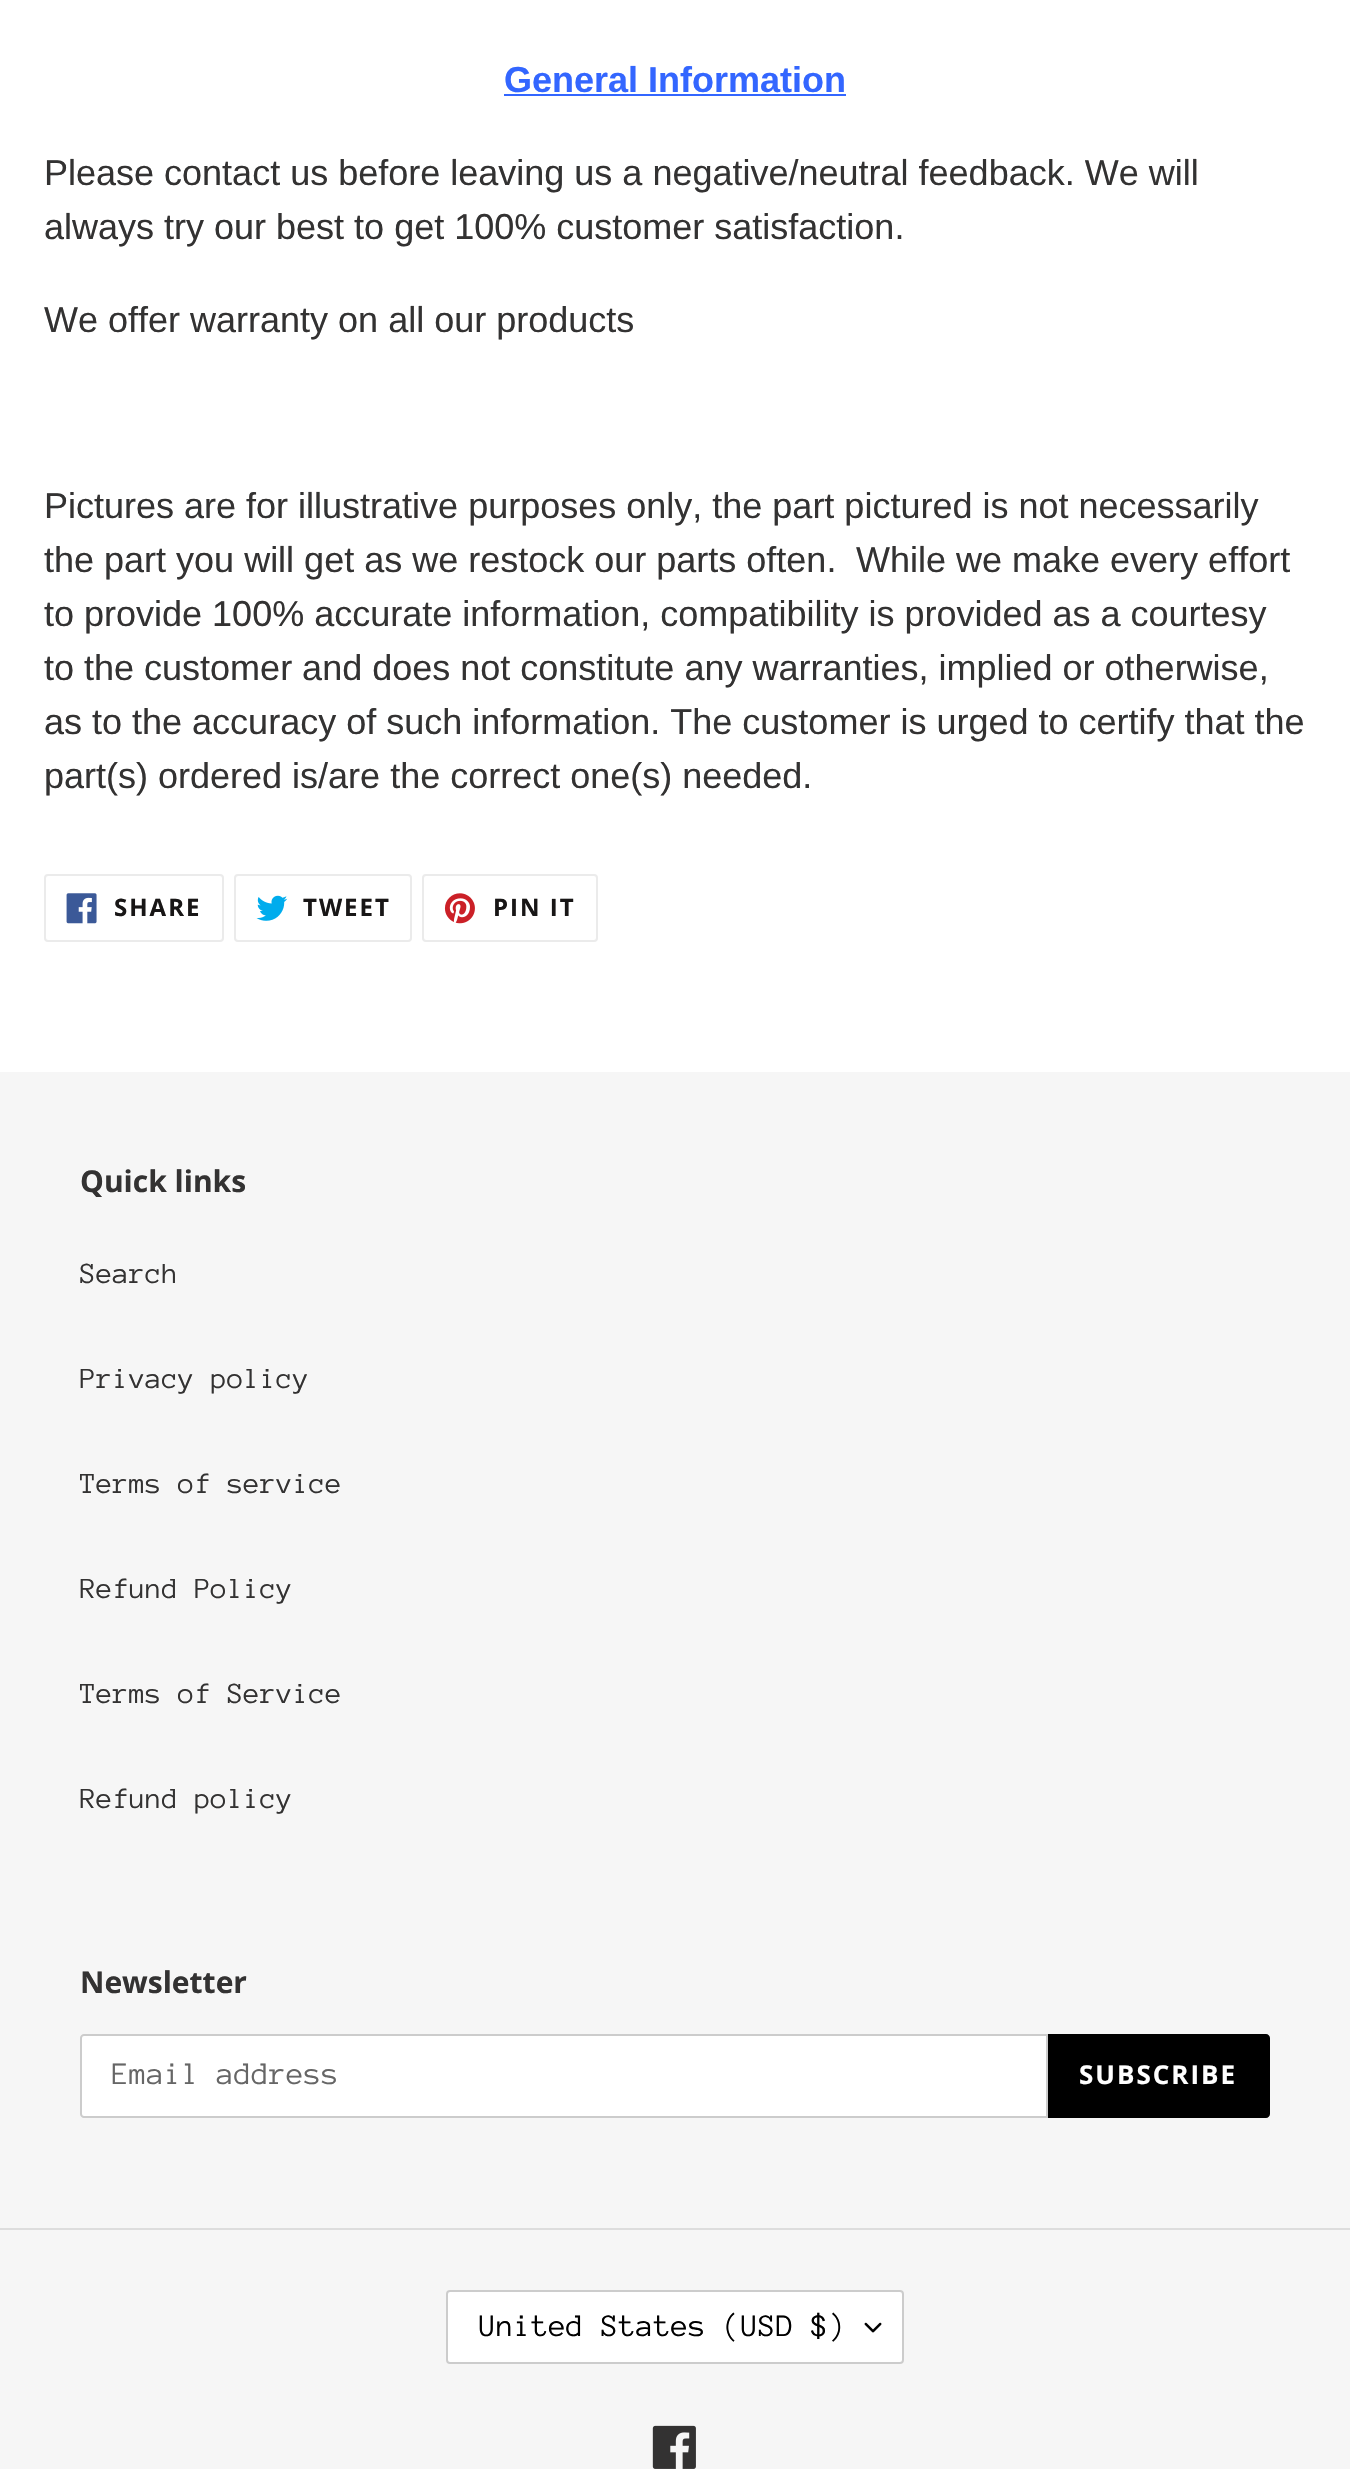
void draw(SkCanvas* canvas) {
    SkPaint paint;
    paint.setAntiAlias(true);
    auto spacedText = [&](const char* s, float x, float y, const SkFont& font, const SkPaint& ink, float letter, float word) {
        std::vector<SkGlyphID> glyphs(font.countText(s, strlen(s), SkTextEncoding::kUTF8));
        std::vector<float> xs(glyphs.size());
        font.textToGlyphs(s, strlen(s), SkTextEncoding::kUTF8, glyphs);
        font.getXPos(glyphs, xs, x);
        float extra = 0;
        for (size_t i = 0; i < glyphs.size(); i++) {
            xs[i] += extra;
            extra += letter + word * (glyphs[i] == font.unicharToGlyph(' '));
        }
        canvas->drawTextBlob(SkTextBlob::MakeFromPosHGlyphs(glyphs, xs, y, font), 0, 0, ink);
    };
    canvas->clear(0xFFFFFFFF);
    SkFont font1(fontMgr->matchFamilyStyle("Liberation Sans", SkFontStyle::Bold()), 36);
    font1.setSubpixel(true);
    paint.setColor(0xFF3366FF);
    canvas->drawString("General Information", 504, 92, font1, paint);
    canvas->drawRect(SkRect::MakeXYWH(504, 94, 342, 2), paint);
    SkFont font2(fontMgr->matchFamilyStyle("Liberation Sans", SkFontStyle::Normal()), 36);
    font2.setSubpixel(true);
    paint.setColor(0xFF333232);
    canvas->drawString("Please contact us before leaving us a negative/neutral feedback. We will", 44, 185, font2, paint);
    canvas->drawString("always try our best to get 100% customer satisfaction.", 44, 239, font2, paint);
    canvas->drawString("We offer warranty on all our products", 44, 332, font2, paint);
    canvas->drawString("Pictures are for illustrative purposes only, the part pictured is not necessarily", 44, 518, font2, paint);
    canvas->drawString("the part you will get as we restock our parts often.", 44, 572, font2, paint);
    canvas->drawString("While we make every effort", 856, 572, font2, paint);
    canvas->drawString("to provide 100% accurate information, compatibility is provided as a courtesy", 44, 626, font2, paint);
    canvas->drawString("to the customer and does not constitute any warranties, implied or otherwise,", 44, 680, font2, paint);
    canvas->drawString("as to the accuracy of such information. The customer is urged to certify that the", 44, 734, font2, paint);
    canvas->drawString("part(s) ordered is/are the correct one(s) needed.", 44, 788, font2, paint);
    paint.setStyle(SkPaint::kStroke_Style);
    paint.setStrokeWidth(2);
    paint.setColor(0xFFEBEBEB);
    canvas->drawRoundRect(SkRect::MakeXYWH(45, 875, 178, 66), 3, 3, paint);
    canvas->drawImageRect(SkImages::DeferredFromEncodedData(SkData::MakeFromFileName("img1.png")), SkRect::MakeXYWH(66, 893, 31, 31), SkSamplingOptions());
    SkFont font3(fontMgr->matchFamilyStyle("Open Sans", SkFontStyle::Bold()), 24);
    font3.setSubpixel(true);
    paint.setStyle(SkPaint::kFill_Style);
    paint.setColor(0xFF181616);
    spacedText("SHARE", 114, 916, font3, paint, 2, 0);
    paint.setStyle(SkPaint::kStroke_Style);
    paint.setColor(0xFFEBEBEB);
    canvas->drawRoundRect(SkRect::MakeXYWH(235, 875, 176, 66), 3, 3, paint);
    canvas->drawImageRect(SkImages::DeferredFromEncodedData(SkData::MakeFromFileName("img2.png")), SkRect::MakeXYWH(256, 895, 32, 26), SkSamplingOptions());
    paint.setStyle(SkPaint::kFill_Style);
    paint.setColor(0xFF181616);
    spacedText("TWEET", 303, 916, font3, paint, 2, 0);
    paint.setStyle(SkPaint::kStroke_Style);
    paint.setColor(0xFFEBEBEB);
    canvas->drawRoundRect(SkRect::MakeXYWH(423, 875, 174, 66), 3, 3, paint);
    canvas->drawImageRect(SkImages::DeferredFromEncodedData(SkData::MakeFromFileName("img3.png")), SkRect::MakeXYWH(444, 893, 31, 31), SkSamplingOptions());
    paint.setStyle(SkPaint::kFill_Style);
    paint.setColor(0xFF181616);
    spacedText("PIN IT", 493, 916, font3, paint, 2, 0);
    paint.setColor(0xFFF6F6F6);
    canvas->drawRect(SkRect::MakeXYWH(0, 1072, 1350, 1397), paint);
    SkFont font4(fontMgr->matchFamilyStyle("Open Sans", SkFontStyle::Bold()), 30);
    font4.setSubpixel(true);
    paint.setColor(0xFF333232);
    canvas->drawString("Quick links", 80, 1192, font4, paint);
    SkFont font5(fontMgr->matchFamilyStyle("Anonymous Pro", SkFontStyle::Normal()), 30);
    font5.setSubpixel(true);
    canvas->drawString("Search", 80, 1283, font5, paint);
    canvas->drawString("Privacy policy", 80, 1388, font5, paint);
    canvas->drawString("Terms of service", 80, 1493, font5, paint);
    canvas->drawString("Refund Policy", 80, 1598, font5, paint);
    canvas->drawString("Terms of Service", 80, 1703, font5, paint);
    canvas->drawString("Refund policy", 80, 1808, font5, paint);
    canvas->drawString("Newsletter", 80, 1993, font4, paint);
    paint.setColor(0xFFFFFFFF);
    canvas->drawPath(SkPathBuilder().moveTo(84, 2035).lineTo(1047, 2035).lineTo(1047, 2117).lineTo(84, 2117).cubicTo(82.5f, 2117, 81, 2115.5f, 81, 2114).lineTo(81, 2038).cubicTo(81, 2036.5f, 82.5f, 2035, 84, 2035).close().detach(), paint);
    paint.setStyle(SkPaint::kStroke_Style);
    paint.setColor(0xFFCCCCCC);
    canvas->drawPath(SkPathBuilder().moveTo(84, 2035).lineTo(1047, 2035).lineTo(1047, 2117).lineTo(84, 2117).cubicTo(82.5f, 2117, 81, 2115.5f, 81, 2114).lineTo(81, 2038).cubicTo(81, 2036.5f, 82.5f, 2035, 84, 2035).close().detach(), paint);
    SkFont font6(fontMgr->matchFamilyStyle("Anonymous Pro", SkFontStyle::Normal()), 32);
    font6.setSubpixel(true);
    paint.setStyle(SkPaint::kFill_Style);
    paint.setColor(0xFF666666);
    canvas->drawString("Email address", 112, 2084, font6, paint);
    paint.setColor(0xFF000000);
    canvas->drawPath(SkPathBuilder().moveTo(1048, 2034).lineTo(1266, 2034).cubicTo(1268, 2034, 1270, 2036, 1270, 2038).lineTo(1270, 2114).cubicTo(1270, 2116, 1268, 2118, 1266, 2118).lineTo(1048, 2118).close().detach(), paint);
    SkFont font7(fontMgr->matchFamilyStyle("Open Sans", SkFontStyle::Bold()), 26);
    font7.setSubpixel(true);
    paint.setColor(0xFFFFFFFF);
    spacedText("SUBSCRIBE", 1079, 2084, font7, paint, 2, 0);
    paint.setColor(0xFFDDDDDD);
    canvas->drawRect(SkRect::MakeXYWH(0, 2228, 1350, 2), paint);
    paint.setColor(0xFFFFFFFF);
    canvas->drawRoundRect(SkRect::MakeXYWH(446, 2290, 458, 74), 4, 4, paint);
    canvas->drawImageRect(SkImages::DeferredFromEncodedData(SkData::MakeFromFileName("img4.png")), SkRect::MakeXYWH(864, 2322, 18, 11), SkSamplingOptions());
    paint.setStyle(SkPaint::kStroke_Style);
    paint.setColor(0xFFCCCCCC);
    canvas->drawRoundRect(SkRect::MakeXYWH(447, 2291, 456, 72), 3, 3, paint);
    paint.setStyle(SkPaint::kFill_Style);
    paint.setColor(0xFF000000);
    canvas->drawString("United States (USD $)", 479, 2336, font6, paint);
    canvas->drawImageRect(SkImages::DeferredFromEncodedData(SkData::MakeFromFileName("img5.png")), SkRect::MakeXYWH(652, 2425, 44, 44), SkSamplingOptions());
}
